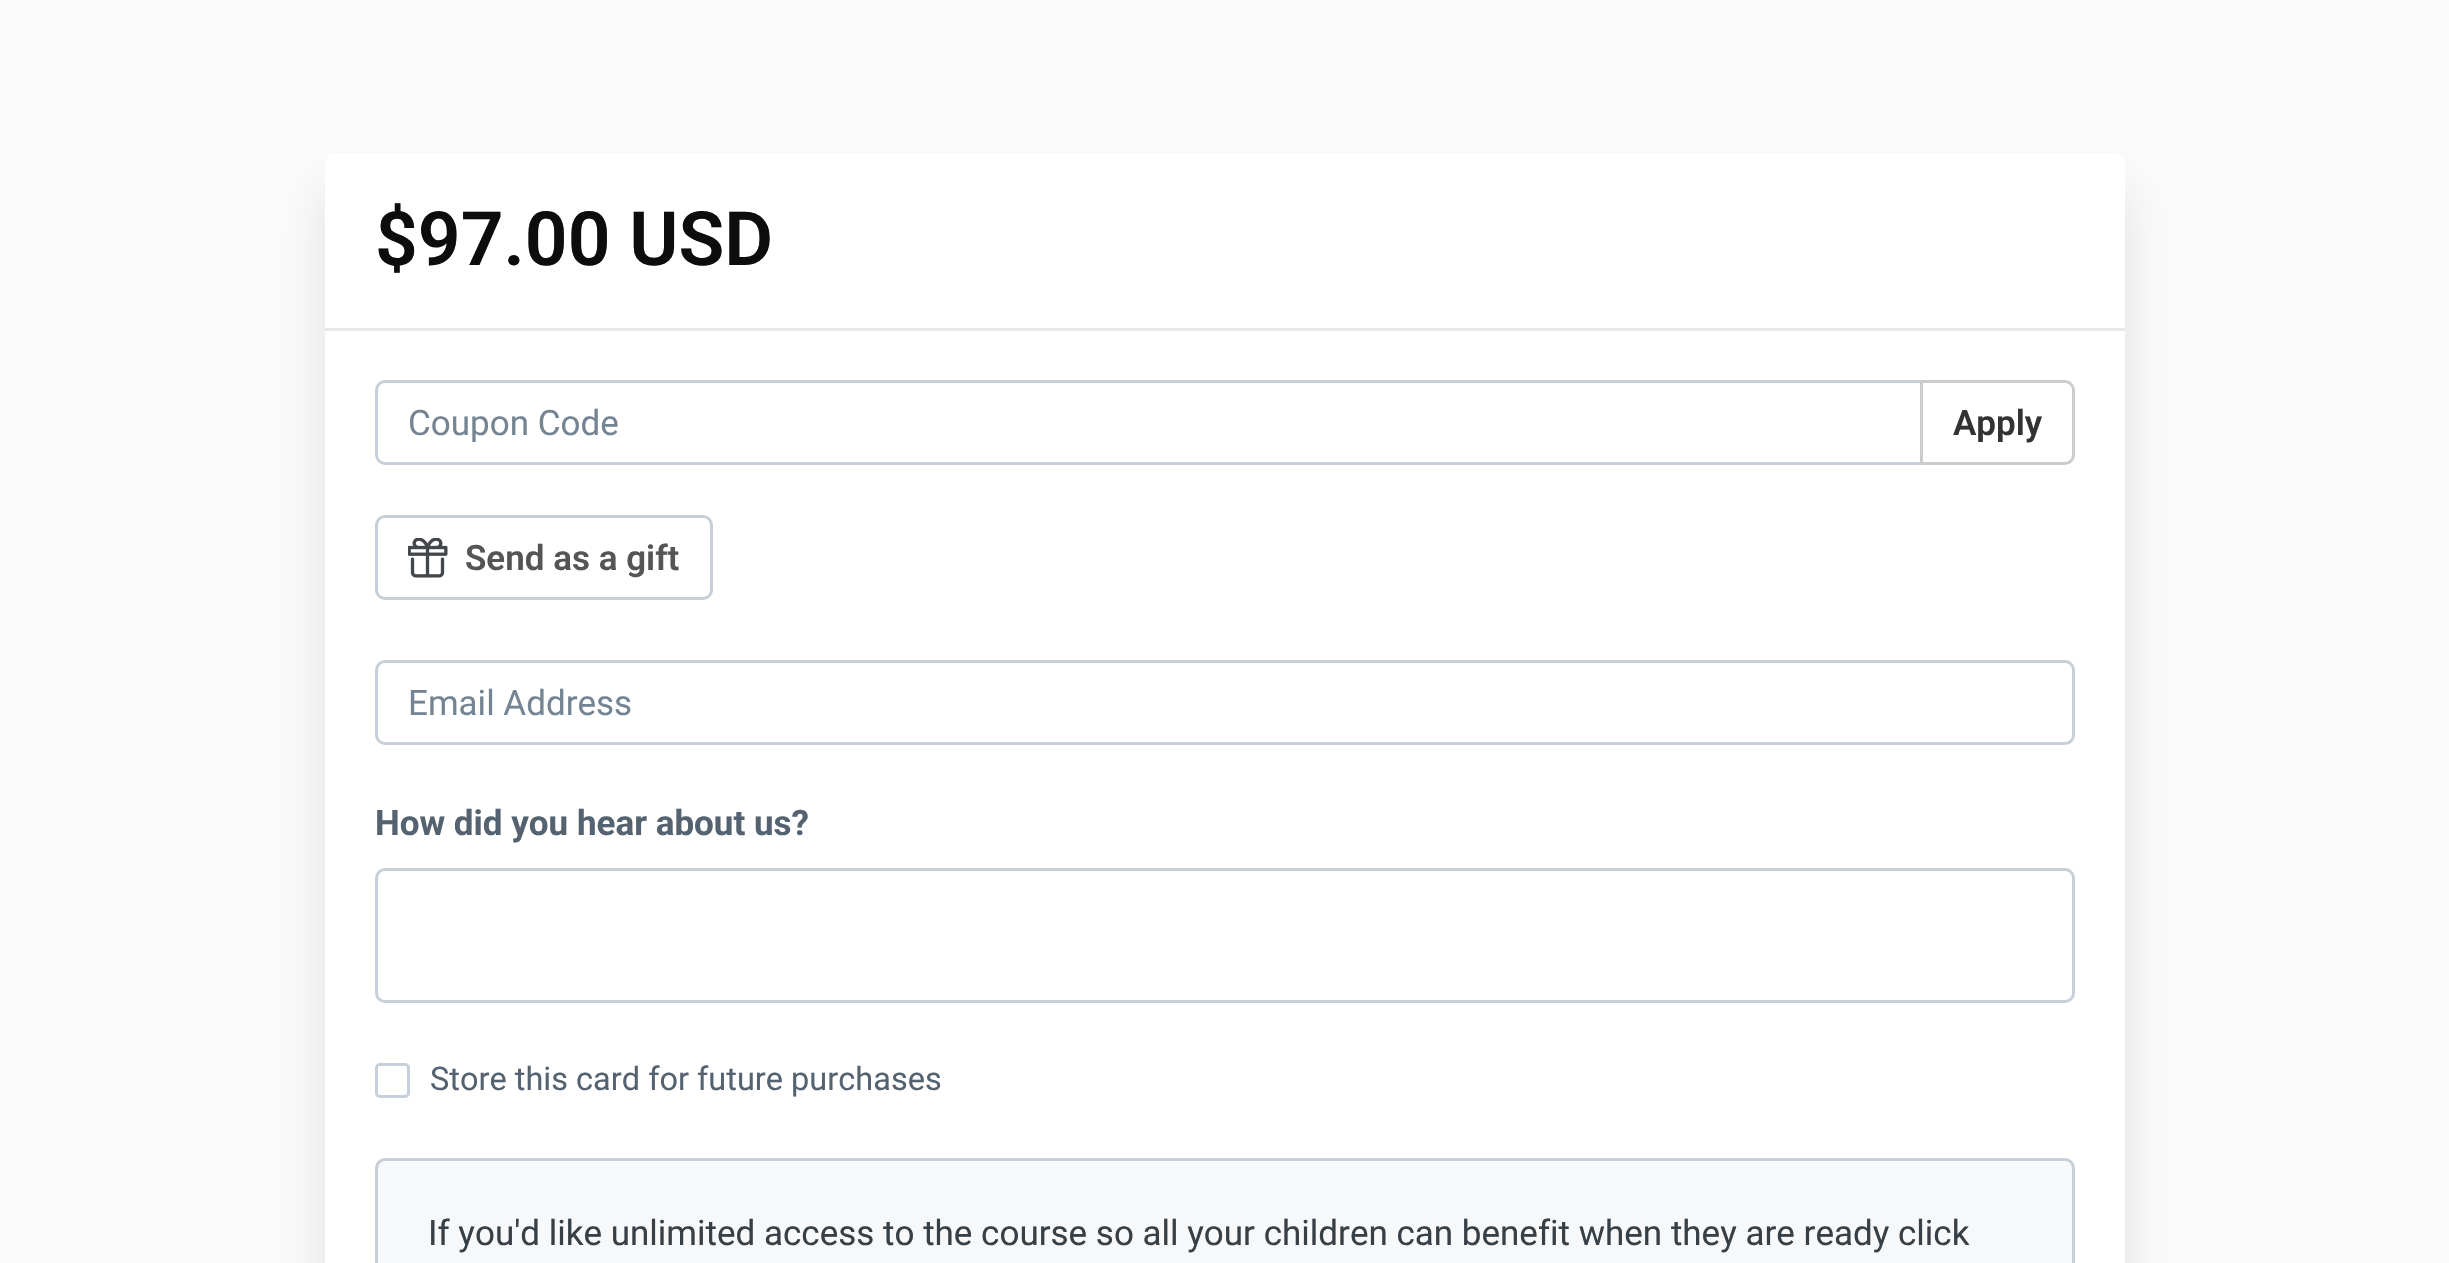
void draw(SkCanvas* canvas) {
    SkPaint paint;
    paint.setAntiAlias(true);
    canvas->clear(0xFFFBFBFB);
    paint.setColor(0x1A000000);
    paint.setMaskFilter(SkMaskFilter::MakeBlur(kNormal_SkBlurStyle, 25));
    canvas->drawRoundRect(SkRect::MakeXYWH(325, 190, 1800, 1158), 10, 10, paint);
    paint.setMaskFilter(nullptr);
    paint.setColor(0xFFFFFFFF);
    canvas->drawRoundRect(SkRect::MakeXYWH(325, 153, 1800, 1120), 10, 10, paint);
    paint.setColor(0xFFE5E9E9);
    canvas->drawRect(SkRect::MakeXYWH(325, 328, 1800, 3), paint);
    SkFont font1(fontMgr->matchFamilyStyle("Roboto", SkFontStyle(600, SkFontStyle::kNormal_Width, SkFontStyle::kUpright_Slant)), 75);
    font1.setSubpixel(true);
    paint.setColor(0xFF0D0D0D);
    canvas->drawString("$97.00 USD", 375, 265, font1, paint);
    paint.setStyle(SkPaint::kStroke_Style);
    paint.setStrokeWidth(3);
    paint.setColor(0xFFC7CFD8);
    canvas->drawPath(SkPathBuilder().moveTo(385, 381.5f).lineTo(1921.5f, 381.5f).lineTo(1921.5f, 463.5f).lineTo(385, 463.5f).cubicTo(380.5f, 463.5f, 376.5f, 459.5f, 376.5f, 455).lineTo(376.5f, 390).cubicTo(376.5f, 385.5f, 380.5f, 381.5f, 385, 381.5f).close().detach(), paint);
    SkFont font2(fontMgr->matchFamilyStyle("Roboto", SkFontStyle::Normal()), 35);
    font2.setSubpixel(true);
    paint.setStyle(SkPaint::kFill_Style);
    paint.setColor(0xFF748493);
    canvas->drawString("Coupon Code", 408, 435, font2, paint);
    paint.setColor(0xFFFFFFFF);
    canvas->drawPath(SkPathBuilder().moveTo(1921.5f, 381.5f).lineTo(2065, 381.5f).cubicTo(2069.5f, 381.5f, 2073.5f, 385.5f, 2073.5f, 390).lineTo(2073.5f, 455).cubicTo(2073.5f, 459.5f, 2069.5f, 463.5f, 2065, 463.5f).lineTo(1921.5f, 463.5f).close().detach(), paint);
    paint.setStyle(SkPaint::kStroke_Style);
    paint.setColor(0xFFCCCCCC);
    canvas->drawPath(SkPathBuilder().moveTo(1921.5f, 381.5f).lineTo(2065, 381.5f).cubicTo(2069.5f, 381.5f, 2073.5f, 385.5f, 2073.5f, 390).lineTo(2073.5f, 455).cubicTo(2073.5f, 459.5f, 2069.5f, 463.5f, 2065, 463.5f).lineTo(1921.5f, 463.5f).close().detach(), paint);
    SkFont font3(fontMgr->matchFamilyStyle("Roboto", SkFontStyle(600, SkFontStyle::kNormal_Width, SkFontStyle::kUpright_Slant)), 35);
    font3.setSubpixel(true);
    paint.setStyle(SkPaint::kFill_Style);
    paint.setColor(0xFF333333);
    canvas->drawString("Apply", 1953, 435, font3, paint);
    paint.setStyle(SkPaint::kStroke_Style);
    paint.setColor(0xFFC7CFD8);
    canvas->drawRoundRect(SkRect::MakeXYWH(376.5f, 516.5f, 335, 82), 8.5f, 8.5f, paint);
    canvas->drawImageRect(SkImages::DeferredFromEncodedData(SkData::MakeFromFileName("img1.png")), SkRect::MakeXYWH(408, 538, 40, 40), SkSamplingOptions());
    paint.setStyle(SkPaint::kFill_Style);
    paint.setColor(0xFF555555);
    canvas->drawString("Send as a gift", 465, 570, font3, paint);
    paint.setStyle(SkPaint::kStroke_Style);
    paint.setColor(0xFFC7CFD8);
    canvas->drawRoundRect(SkRect::MakeXYWH(376.5f, 661.5f, 1697, 82), 8.5f, 8.5f, paint);
    paint.setStyle(SkPaint::kFill_Style);
    paint.setColor(0xFF748493);
    canvas->drawString("Email Address", 408, 715, font2, paint);
    SkFont font4(fontMgr->matchFamilyStyle("Roboto", SkFontStyle::Bold()), 35);
    font4.setSubpixel(true);
    paint.setColor(0xFF556370);
    canvas->drawString("How did you hear about us?", 375, 835, font4, paint);
    paint.setStyle(SkPaint::kStroke_Style);
    paint.setColor(0xFFC7CFD8);
    canvas->drawRoundRect(SkRect::MakeXYWH(376.5f, 869.5f, 1697, 132), 8.5f, 8.5f, paint);
    canvas->drawRoundRect(SkRect::MakeXYWH(376.5f, 1064.5f, 32, 32), 3.5f, 3.5f, paint);
    SkFont font5(fontMgr->matchFamilyStyle("Roboto", SkFontStyle::Normal()), 32.5f);
    font5.setSubpixel(true);
    paint.setStyle(SkPaint::kFill_Style);
    paint.setColor(0xFF556370);
    canvas->drawString("Store this card for future purchases", 430, 1090, font5, paint);
    paint.setColor(0xFFF6F8F9);
    canvas->drawRoundRect(SkRect::MakeXYWH(376.5f, 1159.5f, 1697, 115), 8.5f, 8.5f, paint);
    paint.setStyle(SkPaint::kStroke_Style);
    paint.setColor(0xFFC7CFD8);
    canvas->drawRoundRect(SkRect::MakeXYWH(376.5f, 1159.5f, 1697, 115), 8.5f, 8.5f, paint);
    paint.setStyle(SkPaint::kFill_Style);
    paint.setColor(0xFF373F47);
    canvas->drawString("If you'd like unlimited access to the course so all your children can benefit when they are ready click", 428, 1245, font2, paint);
}
